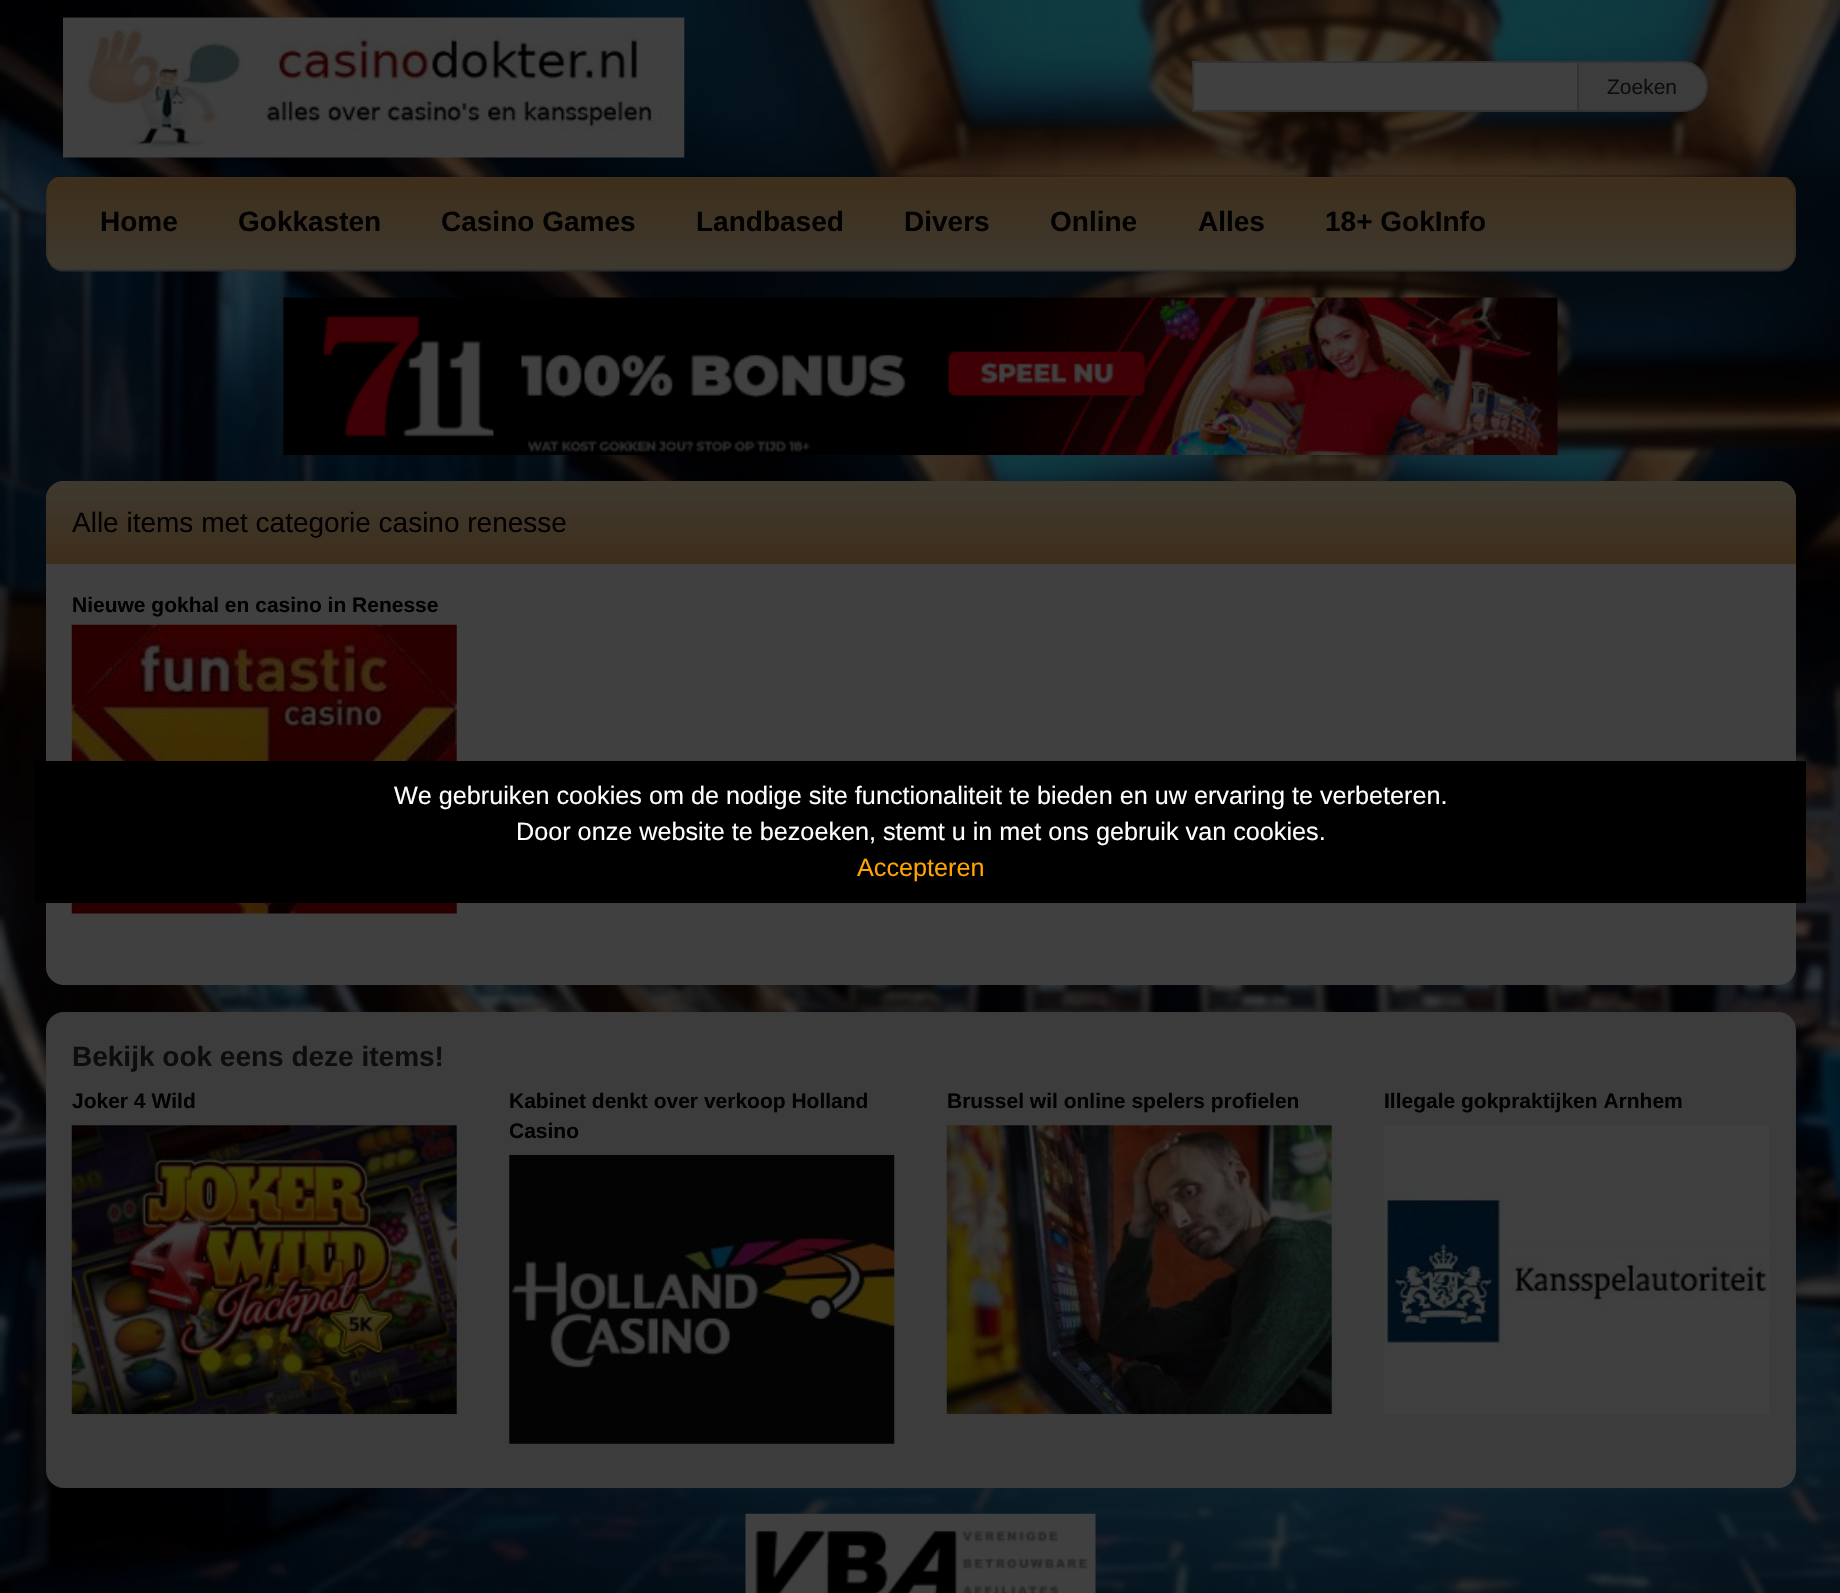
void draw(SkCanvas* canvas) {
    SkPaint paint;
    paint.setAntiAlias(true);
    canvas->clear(0xFFFFFFFF);
    canvas->drawImageRect(SkImages::DeferredFromEncodedData(SkData::MakeFromFileName("img1.png")), SkRect::MakeXYWH(0, 0, 1840, 1593), SkSamplingOptions());
    canvas->drawImageRect(SkImages::DeferredFromEncodedData(SkData::MakeFromFileName("img2.png")), SkRect::MakeXYWH(63, 17, 622, 141), SkSamplingOptions());
    paint.setColor(0xFF404040);
    canvas->drawRect(SkRect::MakeXYWH(1194, 63, 383, 47), paint);
    paint.setColor(0xFF333333);
    canvas->drawRect(SkRect::MakeXYWH(1192, 61, 385, 2), paint);
    canvas->drawRect(SkRect::MakeXYWH(1192, 110, 385, 2), paint);
    canvas->drawRect(SkRect::MakeXYWH(1192, 61, 2, 51), paint);
    paint.setColor(0xFF3C3C3C);
    canvas->drawPath(SkPathBuilder().moveTo(1578, 62).lineTo(1682.5f, 62).cubicTo(1696, 62, 1707, 73, 1707, 86.5f).cubicTo(1707, 100, 1696, 111, 1682.5f, 111).lineTo(1578, 111).close().detach(), paint);
    paint.setStyle(SkPaint::kStroke_Style);
    paint.setStrokeWidth(2);
    paint.setColor(0xFF333333);
    canvas->drawPath(SkPathBuilder().moveTo(1578, 62).lineTo(1682.5f, 62).cubicTo(1696, 62, 1707, 73, 1707, 86.5f).cubicTo(1707, 100, 1696, 111, 1682.5f, 111).lineTo(1578, 111).close().detach(), paint);
    SkFont font1(fontMgr->matchFamilyStyle("Liberation Sans", SkFontStyle::Normal()), 21);
    font1.setSubpixel(true);
    paint.setStyle(SkPaint::kFill_Style);
    paint.setColor(0xFF0D0D0D);
    canvas->drawString("Zoeken", 1607, 94, font1, paint);
    canvas->save();
    canvas->clipPath(SkPathBuilder().moveTo(64, 175).lineTo(1778, 175).cubicTo(1788, 175, 1796, 183, 1796, 193).lineTo(1796, 253).cubicTo(1796, 263, 1788, 271, 1778, 271).lineTo(64, 271).cubicTo(54, 271, 46, 263, 46, 253).lineTo(46, 193).cubicTo(46, 183, 54, 175, 64, 175).close().detach(), true);
    {
        const SkColor colors[] = {0xFF3E2E1B, 0xFF3E392F};
        const float stops[] = {0, 1};
        const SkPoint ends[] = {{921, 177}, {921, 270}};
        paint.setShader(SkGradientShader::MakeLinear(ends, colors, stops, 2, SkTileMode::kClamp));
        paint.setAlpha(255);
    }
    canvas->drawRect(SkRect::MakeXYWH(46, 177, 1750, 93), paint);
    canvas->restore();
    paint.setShader(nullptr);
    paint.setColor(0x33404040);
    canvas->drawPath(SkPathBuilder().moveTo(63, 178).lineTo(1778, 178).cubicTo(1787, 178, 1794, 186, 1794, 194).cubicTo(1794, 185, 1787, 177, 1778, 177).lineTo(63, 177).cubicTo(54, 177, 47, 185, 47, 194).cubicTo(47, 186, 54, 178, 63, 178).close().detach(), paint);
    paint.setStyle(SkPaint::kStroke_Style);
    paint.setStrokeWidth(1.8f);
    paint.setColor(0xFF2D2D2D);
    canvas->drawPath(SkPathBuilder().moveTo(1790, 265.5f).cubicTo(1786.5f, 268.5f, 1782.5f, 270.5f, 1778, 270.5f).lineTo(63, 270.5f).cubicTo(58.5f, 270.5f, 54.5f, 268.5f, 51, 265.5f).detach(), paint);
    paint.setColor(0x1A000000);
    canvas->drawPath(SkPathBuilder().moveTo(51, 265.5f).cubicTo(48, 262.5f, 46.5f, 258, 46.5f, 254).lineTo(46.5f, 192.5f).cubicTo(46.5f, 188, 48, 184, 51, 180.5f).cubicTo(54.5f, 177.5f, 58.5f, 176, 63, 176).lineTo(1778, 176).cubicTo(1782.5f, 176, 1786.5f, 177.5f, 1790, 180.5f).cubicTo(1793, 184, 1794.5f, 188, 1794.5f, 192.5f).lineTo(1794.5f, 254).cubicTo(1794.5f, 258, 1793, 262.5f, 1790, 265.5f).detach(), paint);
    SkFont font2(fontMgr->matchFamilyStyle("Liberation Sans", SkFontStyle::Bold()), 28);
    font2.setSubpixel(true);
    paint.setStyle(SkPaint::kFill_Style);
    paint.setColor(0xFF010101);
    canvas->drawString("Home", 100, 231, font2, paint);
    canvas->drawString("Gokkasten", 238, 231, font2, paint);
    canvas->drawString("Casino Games", 441, 231, font2, paint);
    canvas->drawString("Landbased", 696, 231, font2, paint);
    canvas->drawString("Divers", 904, 231, font2, paint);
    canvas->drawString("Online", 1050, 231, font2, paint);
    canvas->drawString("Alles", 1198, 231, font2, paint);
    canvas->drawString("18+ GokInfo", 1325, 231, font2, paint);
    canvas->drawImageRect(SkImages::DeferredFromEncodedData(SkData::MakeFromFileName("img3.png")), SkRect::MakeXYWH(283, 297, 1275, 158), SkSamplingOptions());
    paint.setColor(0xFF404040);
    canvas->drawRoundRect(SkRect::MakeXYWH(46, 481, 1750, 504), 18, 18, paint);
    {
        const SkColor colors[] = {0xFF3E392F, 0xFF3E2E1B};
        const float stops[] = {0, 1};
        const SkPoint ends[] = {{921, 481}, {921, 564}};
        paint.setShader(SkGradientShader::MakeLinear(ends, colors, stops, 2, SkTileMode::kClamp));
        paint.setAlpha(255);
    }
    canvas->drawPath(SkPathBuilder().moveTo(64, 481).lineTo(1778, 481).cubicTo(1788, 481, 1796, 489, 1796, 499).lineTo(1796, 564).lineTo(46, 564).lineTo(46, 499).cubicTo(46, 489, 54, 481, 64, 481).close().detach(), paint);
    SkFont font3(fontMgr->matchFamilyStyle("Liberation Sans", SkFontStyle::Normal()), 28);
    font3.setSubpixel(true);
    paint.setShader(nullptr);
    paint.setColor(0xFF010101);
    canvas->drawString("Alle items met categorie casino renesse", 72, 532, font3, paint);
    SkFont font4(fontMgr->matchFamilyStyle("Liberation Sans", SkFontStyle::Bold()), 21);
    font4.setSubpixel(true);
    canvas->drawString("Nieuwe gokhal en casino in Renesse", 72, 612, font4, paint);
    canvas->drawImageRect(SkImages::DeferredFromEncodedData(SkData::MakeFromFileName("img4.png")), SkRect::MakeXYWH(71, 624, 386, 290), SkSamplingOptions());
    paint.setColor(0xFF3C3C3C);
    canvas->drawRoundRect(SkRect::MakeXYWH(46, 1012, 1750, 476), 18, 18, paint);
    paint.setColor(0xFF0D0D0D);
    canvas->drawString("Bekijk ook eens deze items!", 72, 1066, font2, paint);
    paint.setColor(0xFF010101);
    canvas->drawString("Joker 4 Wild", 72, 1108, font4, paint);
    canvas->drawImageRect(SkImages::DeferredFromEncodedData(SkData::MakeFromFileName("img5.png")), SkRect::MakeXYWH(71, 1125, 386, 289), SkSamplingOptions());
    canvas->drawString("Kabinet denkt over verkoop Holland", 509, 1108, font4, paint);
    canvas->drawString("Casino", 509, 1138, font4, paint);
    canvas->drawImageRect(SkImages::DeferredFromEncodedData(SkData::MakeFromFileName("img6.png")), SkRect::MakeXYWH(509, 1155, 386, 289), SkSamplingOptions());
    canvas->drawString("Brussel wil online spelers profielen", 947, 1108, font4, paint);
    canvas->drawImageRect(SkImages::DeferredFromEncodedData(SkData::MakeFromFileName("img7.png")), SkRect::MakeXYWH(946, 1125, 386, 289), SkSamplingOptions());
    canvas->drawString("Illegale gokpraktijken Arnhem", 1384, 1108, font4, paint);
    canvas->drawImageRect(SkImages::DeferredFromEncodedData(SkData::MakeFromFileName("img8.png")), SkRect::MakeXYWH(1384, 1125, 386, 289), SkSamplingOptions());
    paint.setColor(0xFF000000);
    canvas->drawRect(SkRect::MakeXYWH(35, 761, 1771, 142), paint);
    SkFont font5(fontMgr->matchFamilyStyle("Liberation Sans", SkFontStyle::Normal()), 25.2f);
    font5.setSubpixel(true);
    paint.setColor(0xFFFFFFFF);
    canvas->drawString("We gebruiken cookies om de nodige site functionaliteit te bieden en uw ervaring te verbeteren.", 394, 804, font5, paint);
    canvas->drawString("Door onze website te bezoeken, stemt u in met ons gebruik van cookies.", 516, 840, font5, paint);
    paint.setColor(0xFFFFA500);
    canvas->drawString("Accepteren", 857, 876, font5, paint);
    canvas->drawImageRect(SkImages::DeferredFromEncodedData(SkData::MakeFromFileName("img9.png")), SkRect::MakeXYWH(745, 1513, 351, 80), SkSamplingOptions());
}
